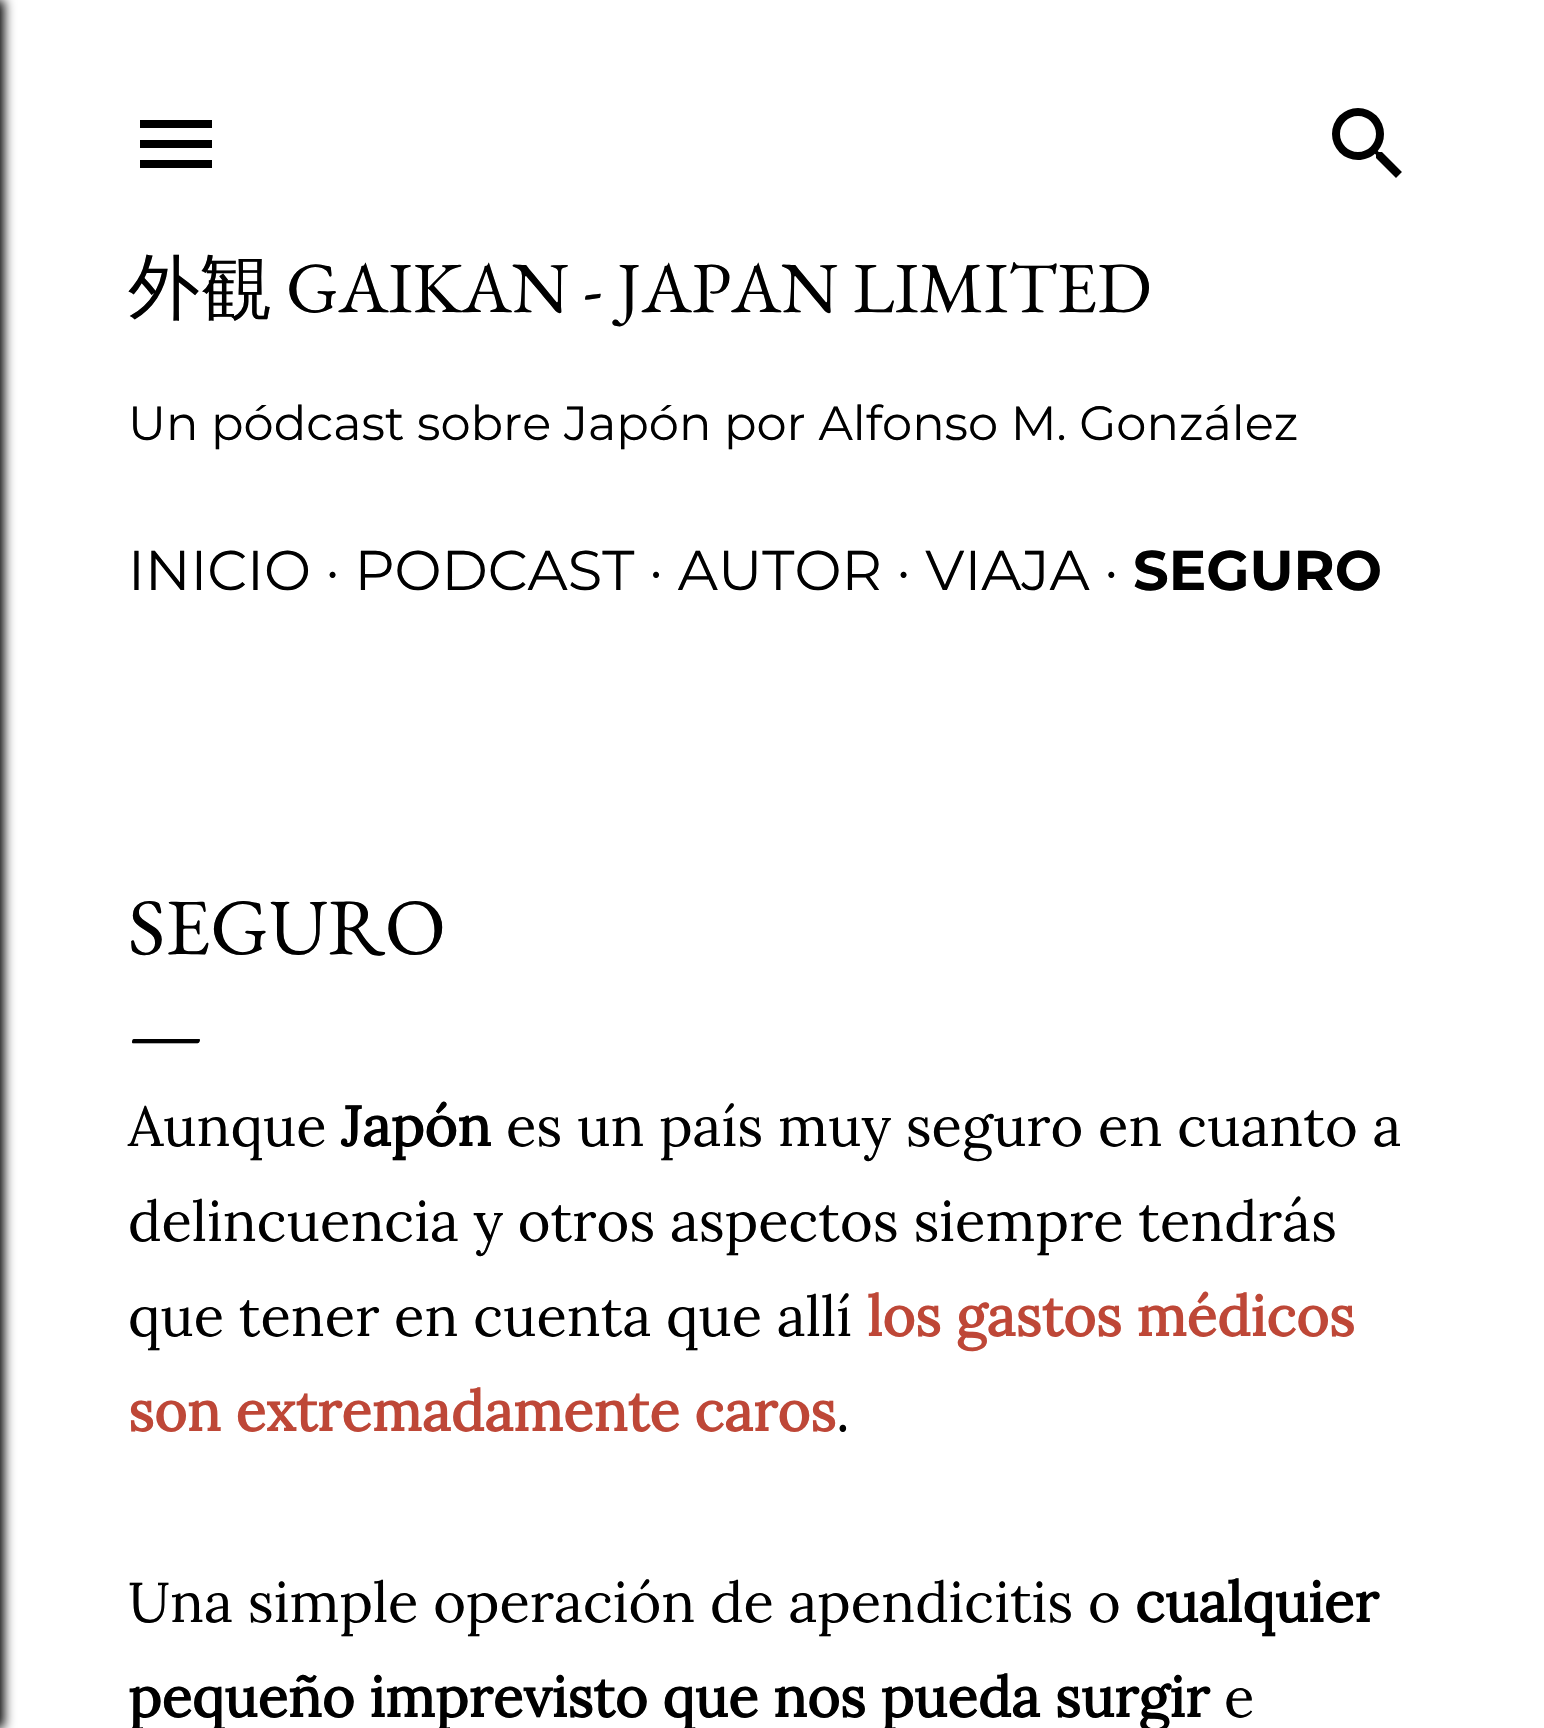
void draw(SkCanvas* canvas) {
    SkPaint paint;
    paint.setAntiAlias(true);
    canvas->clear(0xFFFFFFFF);
    paint.setColor(0xFF000000);
    paint.setMaskFilter(SkMaskFilter::MakeBlur(kNormal_SkBlurStyle, 6));
    canvas->drawRect(SkRect::MakeXYWH(-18, 0, 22, 1728), paint);
    paint.setMaskFilter(nullptr);
    canvas->drawImageRect(SkImages::DeferredFromEncodedData(SkData::MakeFromFileName("img1.png")), SkRect::MakeXYWH(140, 120, 72, 48), SkSamplingOptions());
    canvas->drawImageRect(SkImages::DeferredFromEncodedData(SkData::MakeFromFileName("img2.png")), SkRect::MakeXYWH(1332, 108, 70, 70), SkSamplingOptions());
    SkFont font1(fontMgr->matchFamilyStyle("WenQuanYi Zen Hei", SkFontStyle(500, SkFontStyle::kNormal_Width, SkFontStyle::kUpright_Slant)), 72);
    font1.setSubpixel(true);
    canvas->drawString("外観", 128, 312, font1, paint);
    SkFont font2(fontMgr->matchFamilyStyle("EB Garamond", SkFontStyle::Normal()), 72);
    font2.setSubpixel(true);
    canvas->drawString("GAIKAN - JAPAN LIMITED", 286, 312, font2, paint);
    SkFont font3(fontMgr->matchFamilyStyle("Montserrat", SkFontStyle::Normal()), 48);
    font3.setSubpixel(true);
    canvas->drawString("Un pódcast sobre Japón por Alfonso M. González", 128, 440, font3, paint);
    SkFont font4(fontMgr->matchFamilyStyle("Montserrat", SkFontStyle::Normal()), 56);
    font4.setSubpixel(true);
    canvas->drawString("INICIO · PODCAST · AUTOR · VIAJA ·", 128, 590, font4, paint);
    SkFont font5(fontMgr->matchFamilyStyle("Montserrat", SkFontStyle::Bold()), 56);
    font5.setSubpixel(true);
    canvas->drawString("SEGURO", 1133, 590, font5, paint);
    SkFont font6(fontMgr->matchFamilyStyle("EB Garamond", SkFontStyle::Normal()), 80);
    font6.setSubpixel(true);
    canvas->drawString("SEGURO", 128, 954, font6, paint);
    canvas->drawString("—", 128, 1058, font6, paint);
    SkFont font7(fontMgr->matchFamilyStyle("Lora", SkFontStyle::Normal()), 56);
    font7.setSubpixel(true);
    canvas->drawString("Aunque", 128, 1146, font7, paint);
    SkFont font8(fontMgr->matchFamilyStyle("Lora", SkFontStyle::Bold()), 56);
    font8.setSubpixel(true);
    canvas->drawString("Japón", 341, 1146, font8, paint);
    canvas->drawString("es un país muy seguro en cuanto a", 506, 1146, font7, paint);
    canvas->drawString("delincuencia y otros aspectos siempre tendrás", 128, 1241, font7, paint);
    canvas->drawString("que tener en cuenta que allí", 128, 1336, font7, paint);
    paint.setColor(0xFFBE4737);
    canvas->drawString("los gastos médicos", 867, 1336, font8, paint);
    canvas->drawString("son extremadamente caros", 128, 1431, font8, paint);
    paint.setColor(0xFF000000);
    canvas->drawString(".", 836, 1431, font7, paint);
    canvas->drawString("Una simple operación de apendicitis o", 128, 1622, font7, paint);
    canvas->drawString("cualquier", 1135, 1622, font8, paint);
    canvas->drawString("pequeño imprevisto que nos pueda surgir", 128, 1717, font8, paint);
    canvas->drawString("e", 1224, 1717, font7, paint);
}
